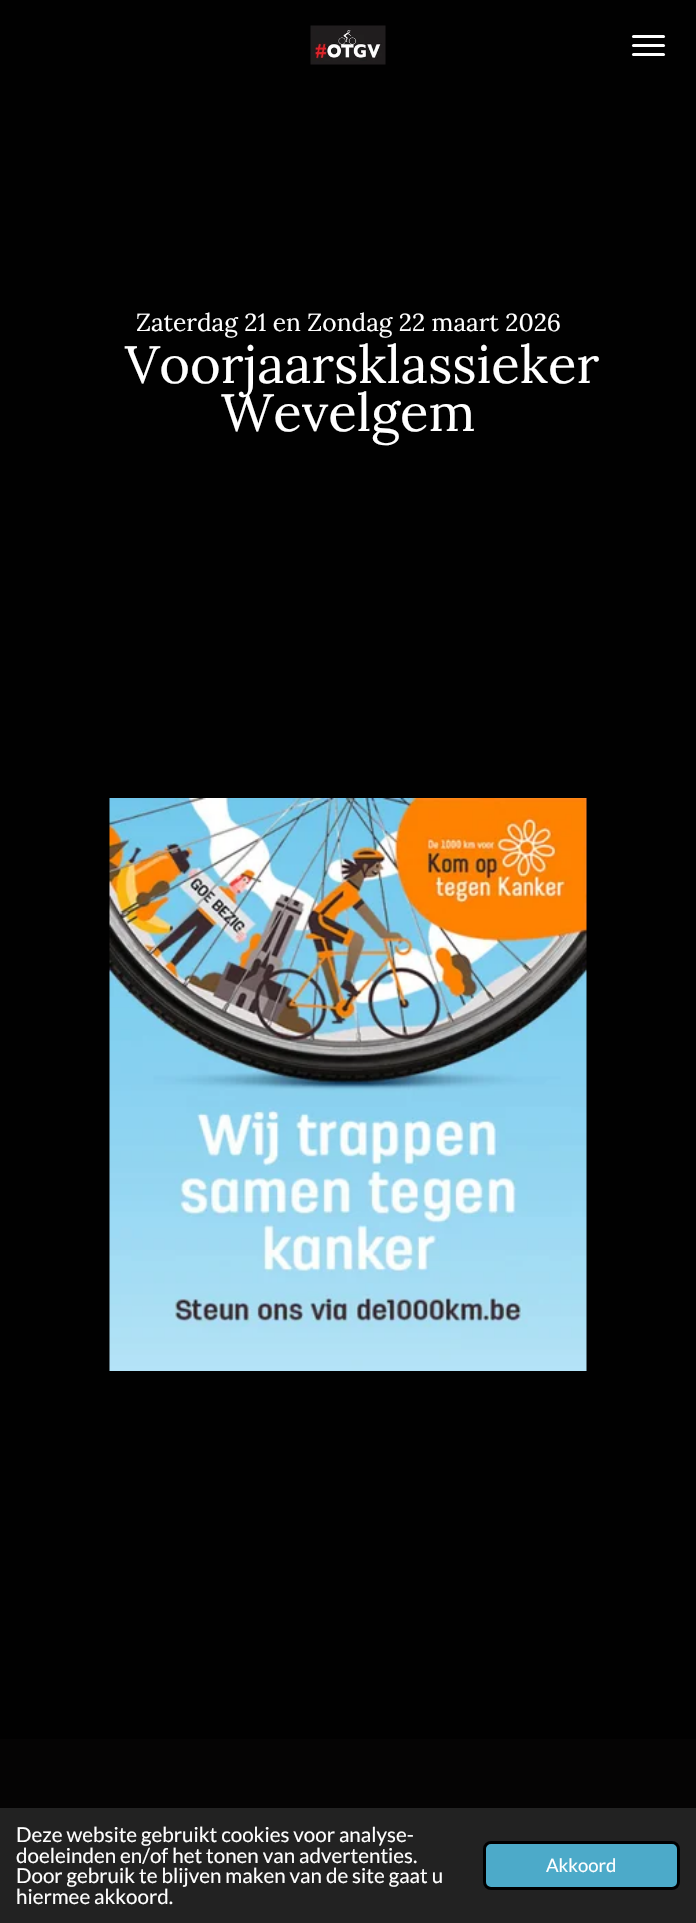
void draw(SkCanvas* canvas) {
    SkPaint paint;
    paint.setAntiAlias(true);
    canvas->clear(0xFF010101);
    canvas->drawImageRect(SkImages::DeferredFromEncodedData(SkData::MakeFromFileName("img1.png")), SkRect::MakeXYWH(310, 25, 76, 40), SkSamplingOptions());
    paint.setColor(0xFFFFFFFF);
    canvas->drawRoundRect(SkRect::MakeXYWH(632, 44, 33, 3), 1.5f, 1.5f, paint);
    canvas->drawRoundRect(SkRect::MakeXYWH(632, 35, 33, 3), 1.5f, 1.5f, paint);
    canvas->drawRoundRect(SkRect::MakeXYWH(632, 53, 33, 3), 1.5f, 1.5f, paint);
    SkFont font1(fontMgr->matchFamilyStyle("Lora", SkFontStyle::Normal()), 24.5f);
    font1.setSubpixel(true);
    canvas->drawString("Zaterdag 21 en Zondag 22 maart 2026", 136, 331, font1, paint);
    SkFont font2(fontMgr->matchFamilyStyle("Lora", SkFontStyle::Normal()), 52.5f);
    font2.setSubpixel(true);
    canvas->drawString("Voorjaarsklassieker", 125, 383, font2, paint);
    canvas->drawString("Wevelgem", 221, 431, font2, paint);
    canvas->drawImageRect(SkImages::DeferredFromEncodedData(SkData::MakeFromFileName("img2.png")), SkRect::MakeXYWH(109, 798, 478, 573), SkSamplingOptions());
    paint.setColor(0xFF050404);
    canvas->drawRect(SkRect::MakeXYWH(0, 1739, 696, 69), paint);
    paint.setColor(0xFF222222);
    canvas->drawRect(SkRect::MakeXYWH(0, 1808, 696, 115), paint);
    SkFont font3(fontMgr->matchFamilyStyle("Lato", SkFontStyle::Normal()), 20.55f);
    font3.setSubpixel(true);
    paint.setColor(0xFFFFFFFF);
    canvas->drawString("Deze website gebruikt cookies voor analyse-", 16, 1842, font3, paint);
    canvas->drawString("doeleinden en/of het tonen van advertenties.", 16, 1863, font3, paint);
    canvas->drawString("Door gebruik te blijven maken van de site gaat u", 16, 1883, font3, paint);
    canvas->drawString("hiermee akkoord.", 16, 1904, font3, paint);
    paint.setColor(0xFF4CAAC9);
    canvas->drawRoundRect(SkRect::MakeXYWH(484.5f, 1842.5f, 194, 46), 6.5f, 6.5f, paint);
    paint.setStyle(SkPaint::kStroke_Style);
    paint.setStrokeWidth(3);
    paint.setColor(0xFF000000);
    canvas->drawRoundRect(SkRect::MakeXYWH(484.5f, 1842.5f, 194, 46), 6.5f, 6.5f, paint);
    SkFont font4(fontMgr->matchFamilyStyle("Lato", SkFontStyle::Normal()), 18.5f);
    font4.setSubpixel(true);
    paint.setStyle(SkPaint::kFill_Style);
    paint.setColor(0xFFFFFFFF);
    canvas->drawString("Akkoord", 546, 1872, font4, paint);
}
